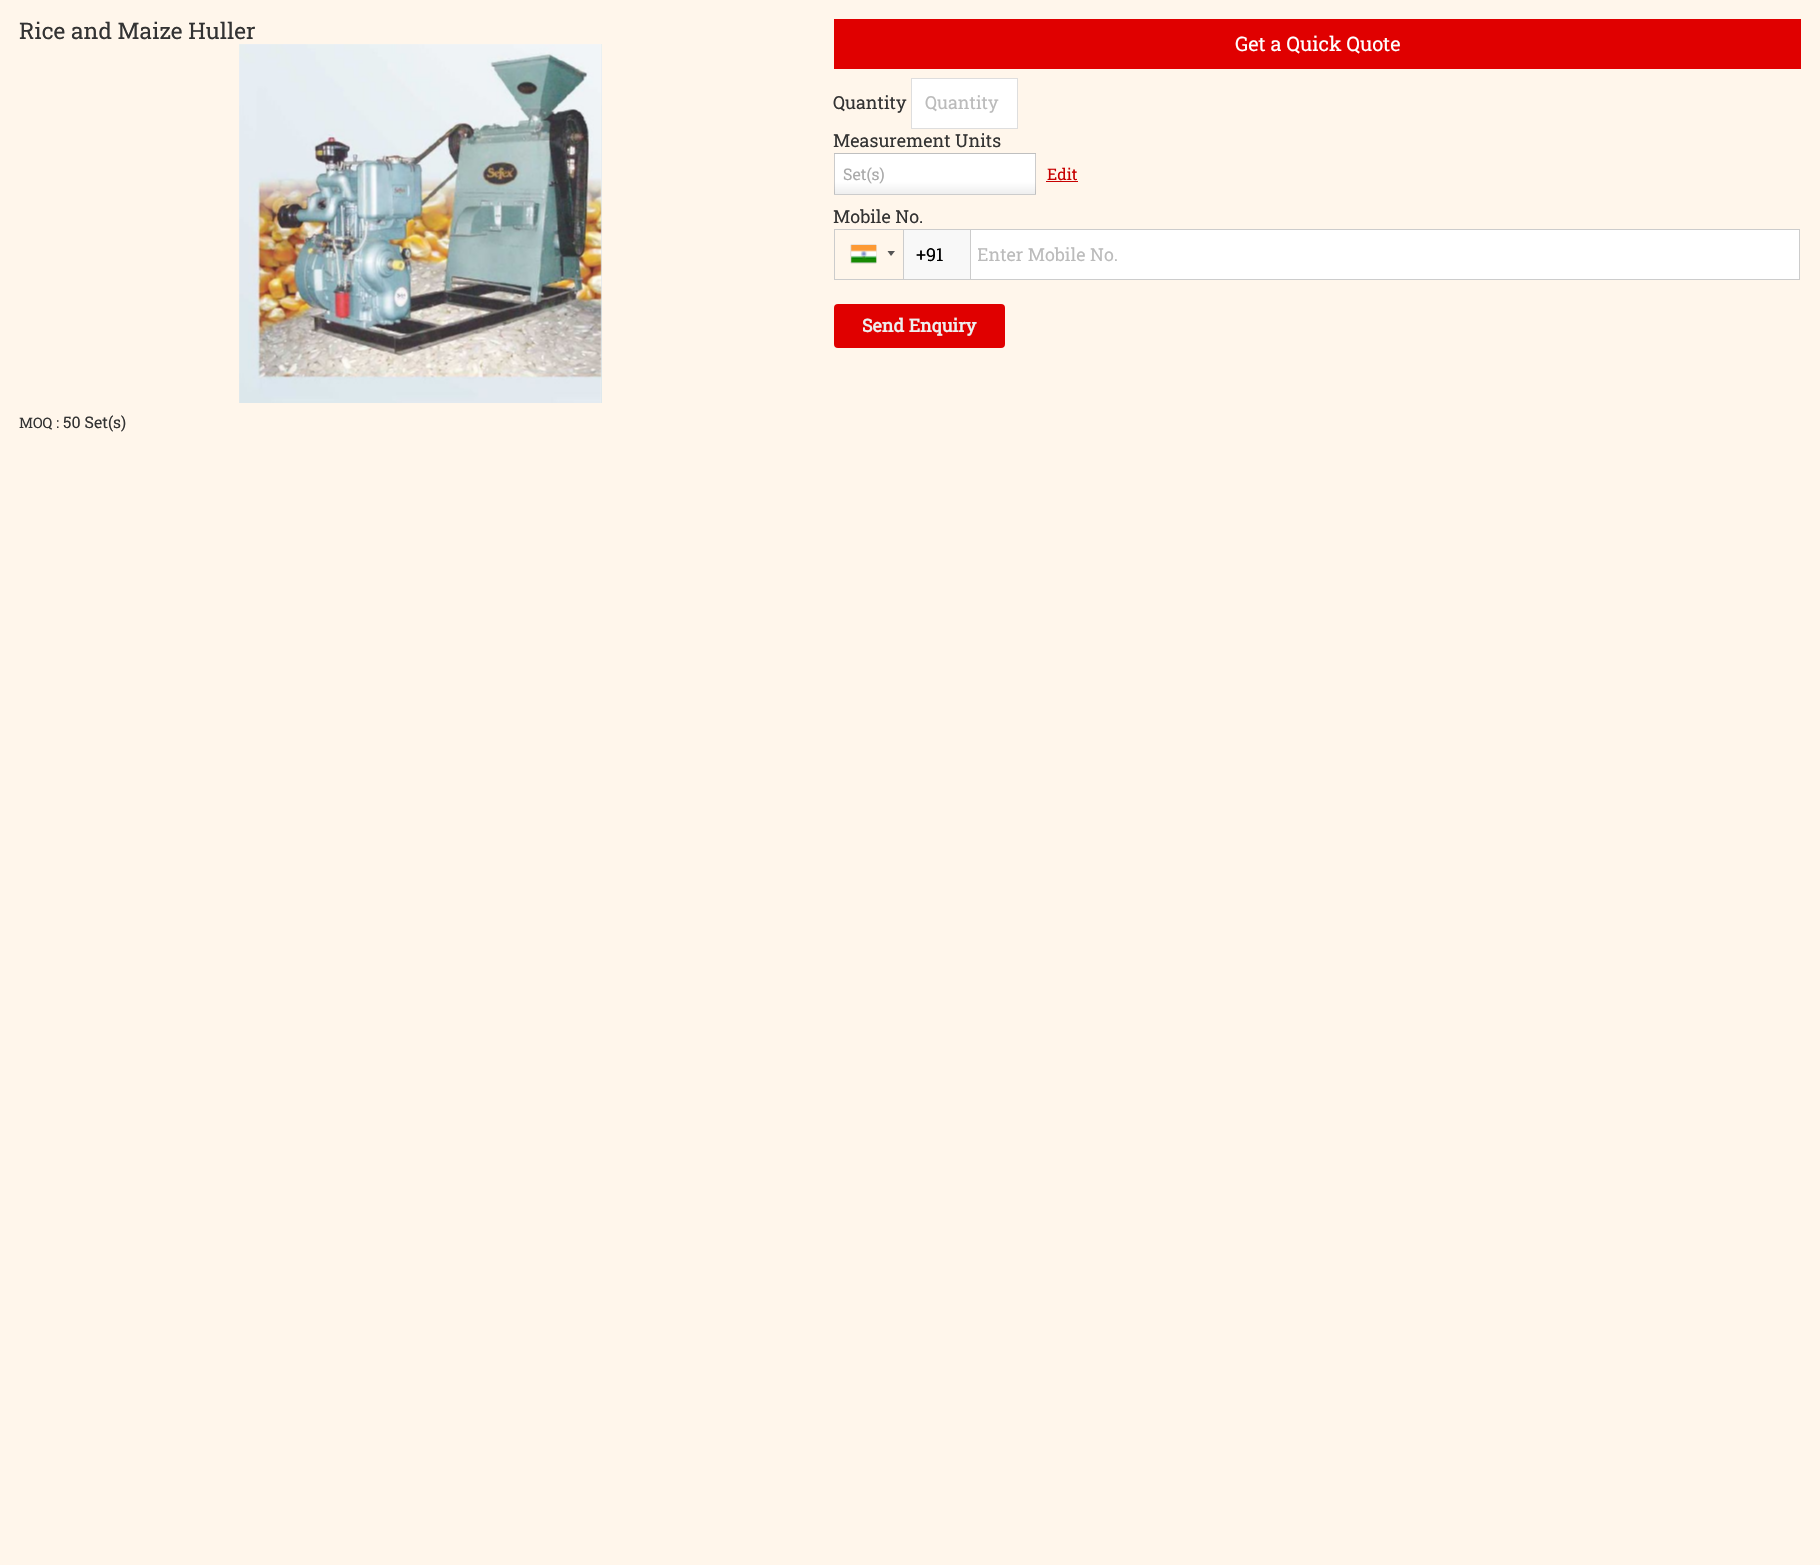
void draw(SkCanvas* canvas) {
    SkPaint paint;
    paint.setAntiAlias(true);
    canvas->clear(0xFFFFF6EB);
    SkFont font1(fontMgr->matchFamilyStyle("Roboto Slab", SkFontStyle::Normal()), 22.75f);
    font1.setSubpixel(true);
    paint.setColor(0xFF333333);
    canvas->drawString("Rice and Maize Huller", 19, 39, font1, paint);
    canvas->drawImageRect(SkImages::DeferredFromEncodedData(SkData::MakeFromFileName("img1.png")), SkRect::MakeXYWH(239, 44, 363, 359), SkSamplingOptions());
    canvas->drawImageRect(SkImages::DeferredFromEncodedData(SkData::MakeFromFileName("img2.png")), SkRect::MakeXYWH(601, 44, 1, 359), SkSamplingOptions());
    SkFont font2(fontMgr->matchFamilyStyle("Roboto Slab", SkFontStyle::Normal()), 14.5f);
    font2.setSubpixel(true);
    canvas->drawString("MOQ :", 19, 428, font2, paint);
    SkFont font3(fontMgr->matchFamilyStyle("Roboto Slab", SkFontStyle::Normal()), 16);
    font3.setSubpixel(true);
    canvas->drawString("50 Set(s)", 63, 428, font3, paint);
    paint.setColor(0xFFE00000);
    canvas->drawRect(SkRect::MakeXYWH(834, 19, 967, 50), paint);
    SkFont font4(fontMgr->matchFamilyStyle("Roboto Slab", SkFontStyle::Normal()), 20);
    font4.setSubpixel(true);
    paint.setColor(0xFFFFFFFF);
    canvas->drawString("Get a Quick Quote", 1235, 51, font4, paint);
    SkFont font5(fontMgr->matchFamilyStyle("Roboto Slab", SkFontStyle::Normal()), 17.9f);
    font5.setSubpixel(true);
    paint.setColor(0xFF333333);
    canvas->drawString("Quantity", 833, 109, font5, paint);
    paint.setColor(0xFFFFFFFF);
    canvas->drawRect(SkRect::MakeXYWH(911.5f, 78.5f, 106, 50), paint);
    paint.setStyle(SkPaint::kStroke_Style);
    paint.setStrokeWidth(1);
    paint.setColor(0xFFDEDEDE);
    canvas->drawRect(SkRect::MakeXYWH(911.5f, 78.5f, 106, 50), paint);
    paint.setStyle(SkPaint::kFill_Style);
    paint.setColor(0xFFBBBBBB);
    canvas->drawString("Quantity", 925, 109, font5, paint);
    paint.setColor(0xFF333333);
    canvas->drawString("Measurement Units", 833, 147, font5, paint);
    {
        const SkColor colors[] = {0xFFFFFFFF, 0xFFEEEEEE};
        const float stops[] = {0.7f, 1};
        const SkPoint ends[] = {{935, 114}, {935, 154}};
        paint.setShader(SkGradientShader::MakeLinear(ends, colors, stops, 2, SkTileMode::kClamp));
        paint.setAlpha(255);
    }
    canvas->drawRect(SkRect::MakeXYWH(834, 153, 202, 1), paint);
    {
        const SkColor colors[] = {0xFFFFFFFF, 0xFFEEEEEE};
        const float stops[] = {0.7f, 1};
        const SkPoint ends[] = {{935, 154}, {935, 194}};
        paint.setShader(SkGradientShader::MakeLinear(ends, colors, stops, 2, SkTileMode::kClamp));
        paint.setAlpha(255);
    }
    canvas->drawRect(SkRect::MakeXYWH(834, 154, 202, 40), paint);
    {
        const SkColor colors[] = {0xFFFFFFFF, 0xFFEEEEEE};
        const float stops[] = {0.7f, 1};
        const SkPoint ends[] = {{935, 194}, {935, 234}};
        paint.setShader(SkGradientShader::MakeLinear(ends, colors, stops, 2, SkTileMode::kClamp));
        paint.setAlpha(255);
    }
    canvas->drawRect(SkRect::MakeXYWH(834, 194, 202, 1), paint);
    paint.setStyle(SkPaint::kStroke_Style);
    paint.setShader(nullptr);
    paint.setColor(0x33000000);
    canvas->drawRect(SkRect::MakeXYWH(834.5f, 153.5f, 201, 41), paint);
    paint.setStyle(SkPaint::kFill_Style);
    paint.setColor(0xFFAAAAAA);
    canvas->drawString("Set(s)", 843, 180, font3, paint);
    paint.setColor(0xFFC70000);
    canvas->drawString("Edit", 1047, 180, font3, paint);
    canvas->drawRect(SkRect::MakeXYWH(1046, 181, 32, 1), paint);
    paint.setColor(0xFF333333);
    canvas->drawString("Mobile No.", 833, 223, font5, paint);
    paint.setStyle(SkPaint::kStroke_Style);
    paint.setColor(0xFFCCCCCC);
    canvas->drawRect(SkRect::MakeXYWH(834.5f, 229.5f, 69, 50), paint);
    paint.setStyle(SkPaint::kFill_Style);
    paint.setColor(0xFF888888);
    paint.setMaskFilter(SkMaskFilter::MakeBlur(kNormal_SkBlurStyle, 0.5f));
    canvas->drawRect(SkRect::MakeXYWH(851, 245, 25, 18), paint);
    paint.setMaskFilter(nullptr);
    paint.setColor(0xFFDBDBDB);
    canvas->drawRect(SkRect::MakeXYWH(851, 245, 25, 18), paint);
    canvas->drawImageRect(SkImages::DeferredFromEncodedData(SkData::MakeFromFileName("img3.png")), SkRect::MakeXYWH(851, 245, 26, 18), SkSamplingOptions());
    paint.setColor(0xFF555555);
    canvas->drawPath(SkPathBuilder().moveTo(887.5f, 251).lineTo(895, 251).lineTo(891, 256).close().detach(), paint);
    paint.setColor(0xFFF8F8F8);
    canvas->drawRect(SkRect::MakeXYWH(903.5f, 229.5f, 67, 50), paint);
    paint.setStyle(SkPaint::kStroke_Style);
    paint.setColor(0xFFCCCCCC);
    canvas->drawRect(SkRect::MakeXYWH(903.5f, 229.5f, 67, 50), paint);
    paint.setStyle(SkPaint::kFill_Style);
    paint.setColor(0xFF000000);
    canvas->drawString("+91", 916, 261, font5, paint);
    paint.setColor(0xFFFFFFFF);
    canvas->drawRect(SkRect::MakeXYWH(970.5f, 229.5f, 829, 50), paint);
    paint.setStyle(SkPaint::kStroke_Style);
    paint.setColor(0xFFCCCCCC);
    canvas->drawRect(SkRect::MakeXYWH(970.5f, 229.5f, 829, 50), paint);
    canvas->save();
    canvas->clipRect(SkRect::MakeXYWH(978, 243, 813, 23));
    paint.setStyle(SkPaint::kFill_Style);
    paint.setColor(0xFFBBBBBB);
    canvas->drawString("Enter Mobile No.", 977, 261, font5, paint);
    canvas->restore();
    paint.setColor(0xFFE00000);
    canvas->drawRoundRect(SkRect::MakeXYWH(834, 304, 171, 44), 4, 4, paint);
    SkFont font6(fontMgr->matchFamilyStyle("Roboto Slab", SkFontStyle::Bold()), 17.9f);
    font6.setSubpixel(true);
    paint.setColor(0xFFEEEEEE);
    canvas->drawString("Send Enquiry", 862, 332, font6, paint);
}
